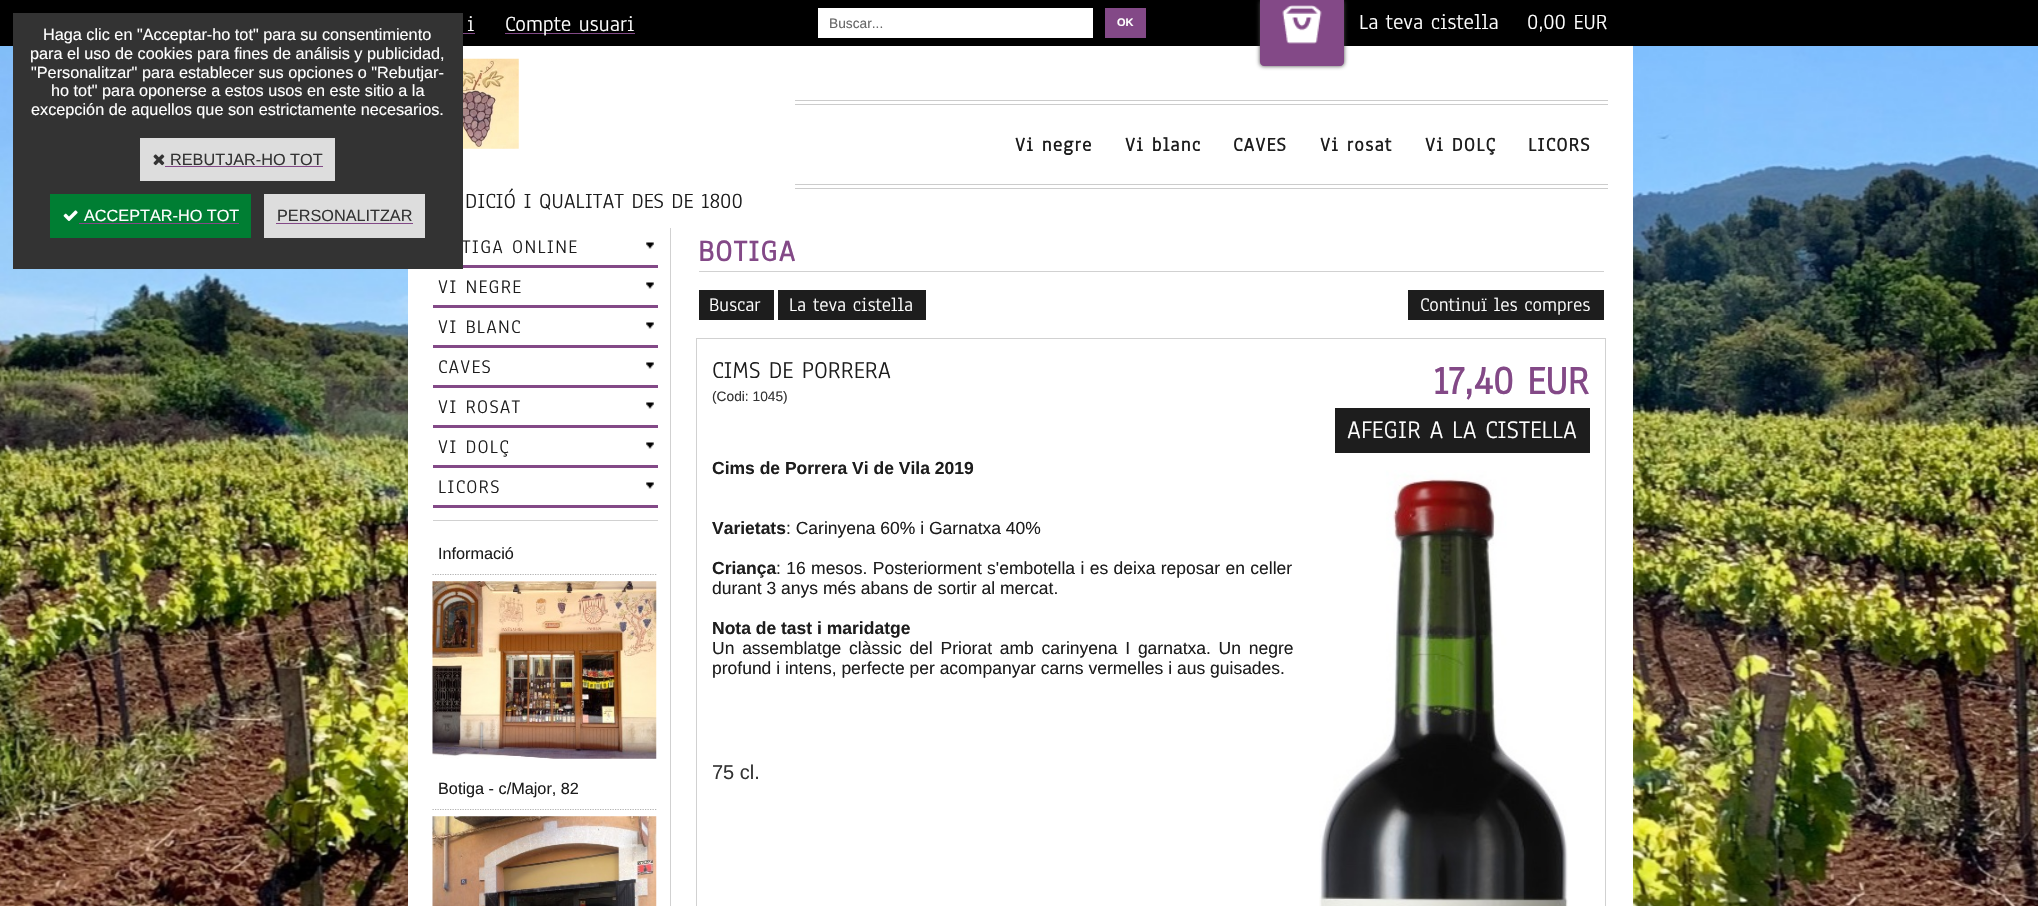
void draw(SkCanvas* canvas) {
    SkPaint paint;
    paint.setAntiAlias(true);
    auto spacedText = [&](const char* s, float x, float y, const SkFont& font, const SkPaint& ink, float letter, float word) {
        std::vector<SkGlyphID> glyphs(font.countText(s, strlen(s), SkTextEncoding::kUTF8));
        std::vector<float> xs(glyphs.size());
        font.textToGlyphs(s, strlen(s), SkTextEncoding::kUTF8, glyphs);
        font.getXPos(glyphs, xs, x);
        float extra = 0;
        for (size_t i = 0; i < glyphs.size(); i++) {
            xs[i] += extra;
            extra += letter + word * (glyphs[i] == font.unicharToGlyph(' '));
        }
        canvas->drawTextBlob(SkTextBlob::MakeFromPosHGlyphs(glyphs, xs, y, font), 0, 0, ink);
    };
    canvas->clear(0xFFFFFFFF);
    canvas->drawImageRect(SkImages::DeferredFromEncodedData(SkData::MakeFromFileName("img1.png")), SkRect::MakeXYWH(0, 46, 2038, 860), SkSamplingOptions());
    paint.setColor(0xFF000000);
    canvas->drawRect(SkRect::MakeXYWH(0, 0, 2038, 46), paint);
    paint.setColor(0xFFFFFFFF);
    canvas->drawRect(SkRect::MakeXYWH(408, 228, 1225, 678), paint);
    SkFont font1(fontMgr->matchFamilyStyle("Anaheim", SkFontStyle::Normal()), 20);
    font1.setSubpixel(true);
    paint.setColor(0xFF1D1D1D);
    spacedText("TIGA ONLINE", 462, 253, font1, paint, 1.25f, 0);
    paint.setColor(0xFF333333);
    canvas->drawRect(SkRect::MakeXYWH(13, 13, 450, 256), paint);
    SkFont font2(fontMgr->matchFamilyStyle("Liberation Sans", SkFontStyle::Normal()), 16.25f);
    font2.setSubpixel(true);
    paint.setColor(0xFFFFFFFF);
    canvas->drawString("Haga clic en \"Acceptar-ho tot\" para su consentimiento", 43, 40, font2, paint);
    canvas->drawString("para el uso de cookies para fines de análisis y publicidad,", 30, 59, font2, paint);
    canvas->drawString("\"Personalitzar\" para establecer sus opciones o \"Rebutjar-", 31, 78, font2, paint);
    canvas->drawString("ho tot\" para oponerse a estos usos en este sitio a la", 51, 96, font2, paint);
    canvas->drawString("excepción de aquellos que son estrictamente necesarios.", 31, 115, font2, paint);
    paint.setColor(0xFFDDDDDD);
    canvas->drawRect(SkRect::MakeXYWH(140, 138, 195, 43), paint);
    canvas->drawImageRect(SkImages::DeferredFromEncodedData(SkData::MakeFromFileName("img2.png")), SkRect::MakeXYWH(153, 154, 12, 12), SkSamplingOptions());
    paint.setColor(0xFF333333);
    canvas->drawString("REBUTJAR-HO TOT", 170, 165, font2, paint);
    paint.setColor(0xFF834987);
    canvas->drawRect(SkRect::MakeXYWH(165, 166, 158, 1), paint);
    paint.setColor(0xFF007E33);
    canvas->drawRect(SkRect::MakeXYWH(50, 194, 201, 44), paint);
    canvas->drawImageRect(SkImages::DeferredFromEncodedData(SkData::MakeFromFileName("img3.png")), SkRect::MakeXYWH(63, 210, 15, 11), SkSamplingOptions());
    paint.setColor(0xFFFFFFFF);
    canvas->drawString("ACCEPTAR-HO TOT", 84, 221, font2, paint);
    paint.setColor(0xFF834987);
    canvas->drawRect(SkRect::MakeXYWH(79, 223, 160, 1), paint);
    paint.setColor(0xFFDDDDDD);
    canvas->drawRect(SkRect::MakeXYWH(264, 194, 161, 44), paint);
    paint.setColor(0xFF333333);
    canvas->drawString("PERSONALITZAR", 277, 221, font2, paint);
    paint.setColor(0xFF834987);
    canvas->drawRect(SkRect::MakeXYWH(276, 223, 137, 1), paint);
    paint.setColor(0xFFFFFFFF);
    canvas->drawRect(SkRect::MakeXYWH(463, 46, 1170, 182), paint);
    SkFont font3(fontMgr->matchFamilyStyle("Anaheim", SkFontStyle::Normal()), 22.5f);
    font3.setSubpixel(true);
    canvas->drawString("i", 467, 31, font3, paint);
    paint.setColor(0xFF834987);
    canvas->drawRect(SkRect::MakeXYWH(463, 33, 12, 1), paint);
    canvas->drawRect(SkRect::MakeXYWH(505, 33, 130, 1), paint);
    paint.setColor(0xFFFFFFFF);
    canvas->drawString("Compte usuari", 505, 31, font3, paint);
    canvas->drawRect(SkRect::MakeXYWH(818, 8, 275, 30), paint);
    SkFont font4(fontMgr->matchFamilyStyle("Liberation Sans", SkFontStyle::Normal()), 13.75f);
    font4.setSubpixel(true);
    paint.setColor(0xFF666666);
    canvas->drawString("Buscar...", 829, 28, font4, paint);
    paint.setColor(0xFF834987);
    canvas->drawRect(SkRect::MakeXYWH(1105, 8, 41, 30), paint);
    SkFont font5(fontMgr->matchFamilyStyle("Liberation Sans", SkFontStyle::Bold()), 11);
    font5.setSubpixel(true);
    paint.setColor(0xFFFFFFFF);
    canvas->drawString("OK", 1117, 26, font5, paint);
    paint.setColor(0xFF474747);
    paint.setMaskFilter(SkMaskFilter::MakeBlur(kNormal_SkBlurStyle, 2));
    canvas->drawRoundRect(SkRect::MakeXYWH(1260, 0, 84, 66), 4, 4, paint);
    paint.setMaskFilter(nullptr);
    paint.setColor(0xFF834987);
    canvas->drawPath(SkPathBuilder().moveTo(1260, 0).lineTo(1344, 0).lineTo(1344, 62).cubicTo(1344, 64, 1342, 66, 1340, 66).lineTo(1264, 66).cubicTo(1262, 66, 1260, 64, 1260, 62).close().detach(), paint);
    canvas->drawImageRect(SkImages::DeferredFromEncodedData(SkData::MakeFromFileName("img4.png")), SkRect::MakeXYWH(1282, 5, 40, 39), SkSamplingOptions());
    paint.setColor(0xFFFFFFFF);
    canvas->drawString("La teva cistella", 1359, 29, font3, paint);
    canvas->drawString("0,00 EUR", 1527, 29, font3, paint);
    paint.setColor(0xFFCCCCCC);
    canvas->drawRect(SkRect::MakeXYWH(795, 100, 813, 1), paint);
    canvas->drawRect(SkRect::MakeXYWH(795, 104, 813, 1), paint);
    canvas->drawRect(SkRect::MakeXYWH(795, 184, 813, 1), paint);
    canvas->drawRect(SkRect::MakeXYWH(795, 188, 813, 1), paint);
    SkFont font6(fontMgr->matchFamilyStyle("Anaheim", SkFontStyle::Bold()), 20);
    font6.setSubpixel(true);
    paint.setColor(0xFF1D1D1D);
    spacedText("Vi negre", 1015, 151, font6, paint, 1.25f, 0);
    spacedText("Vi blanc", 1125, 151, font6, paint, 1.25f, 0);
    spacedText("CAVES", 1233, 151, font6, paint, 1.25f, 0);
    spacedText("Vi rosat", 1320, 151, font6, paint, 1.25f, 0);
    spacedText("Vi DOLÇ", 1425, 151, font6, paint, 1.25f, 0);
    spacedText("LICORS", 1528, 151, font6, paint, 1.25f, 0);
    canvas->drawImageRect(SkImages::DeferredFromEncodedData(SkData::MakeFromFileName("img5.png")), SkRect::MakeXYWH(463, 58, 56, 91), SkSamplingOptions());
    canvas->drawString("DICIÓ I QUALITAT DES DE 1800", 465, 208, font3, paint);
    paint.setColor(0xFFD1D1D1);
    canvas->drawRect(SkRect::MakeXYWH(670, 228, 1, 678), paint);
    canvas->drawImageRect(SkImages::DeferredFromEncodedData(SkData::MakeFromFileName("img6.png")), SkRect::MakeXYWH(646, 242, 8, 7), SkSamplingOptions());
    paint.setColor(0xFF834987);
    canvas->drawRect(SkRect::MakeXYWH(463, 265, 195, 3), paint);
    canvas->drawImageRect(SkImages::DeferredFromEncodedData(SkData::MakeFromFileName("img6.png")), SkRect::MakeXYWH(646, 282, 8, 7), SkSamplingOptions());
    canvas->drawRect(SkRect::MakeXYWH(433, 305, 225, 3), paint);
    paint.setColor(0xFF1D1D1D);
    spacedText("VI NEGRE", 438, 293, font1, paint, 1.25f, 0);
    canvas->drawImageRect(SkImages::DeferredFromEncodedData(SkData::MakeFromFileName("img6.png")), SkRect::MakeXYWH(646, 322, 8, 7), SkSamplingOptions());
    paint.setColor(0xFF834987);
    canvas->drawRect(SkRect::MakeXYWH(433, 345, 225, 3), paint);
    paint.setColor(0xFF1D1D1D);
    spacedText("VI BLANC", 438, 333, font1, paint, 1.25f, 0);
    canvas->drawImageRect(SkImages::DeferredFromEncodedData(SkData::MakeFromFileName("img6.png")), SkRect::MakeXYWH(646, 362, 8, 7), SkSamplingOptions());
    paint.setColor(0xFF834987);
    canvas->drawRect(SkRect::MakeXYWH(433, 385, 225, 3), paint);
    paint.setColor(0xFF1D1D1D);
    spacedText("CAVES", 438, 373, font1, paint, 1.25f, 0);
    canvas->drawImageRect(SkImages::DeferredFromEncodedData(SkData::MakeFromFileName("img6.png")), SkRect::MakeXYWH(646, 402, 8, 7), SkSamplingOptions());
    paint.setColor(0xFF834987);
    canvas->drawRect(SkRect::MakeXYWH(433, 425, 225, 3), paint);
    paint.setColor(0xFF1D1D1D);
    spacedText("VI ROSAT", 438, 413, font1, paint, 1.25f, 0);
    canvas->drawImageRect(SkImages::DeferredFromEncodedData(SkData::MakeFromFileName("img6.png")), SkRect::MakeXYWH(646, 442, 8, 7), SkSamplingOptions());
    paint.setColor(0xFF834987);
    canvas->drawRect(SkRect::MakeXYWH(433, 465, 225, 3), paint);
    paint.setColor(0xFF1D1D1D);
    spacedText("VI DOLÇ", 438, 453, font1, paint, 1.25f, 0);
    canvas->drawImageRect(SkImages::DeferredFromEncodedData(SkData::MakeFromFileName("img6.png")), SkRect::MakeXYWH(646, 482, 8, 7), SkSamplingOptions());
    paint.setColor(0xFF834987);
    canvas->drawRect(SkRect::MakeXYWH(433, 505, 225, 3), paint);
    paint.setColor(0xFF1D1D1D);
    spacedText("LICORS", 438, 493, font1, paint, 1.25f, 0);
    paint.setColor(0xFFD1D1D1);
    canvas->drawRect(SkRect::MakeXYWH(433, 520, 225, 1), paint);
    paint.setStyle(SkPaint::kStroke_Style);
    paint.setStrokeWidth(1.2f);
    paint.setColor(0xFFB1B1B1);
    paint.setPathEffect(SkDashPathEffect::Make({{1.25f, 1.25f}}, 0));
    canvas->drawPath(SkPathBuilder().moveTo(432.5f, 574.5f).lineTo(657.5f, 574.5f).detach(), paint);
    paint.setPathEffect(nullptr);
    paint.setStyle(SkPaint::kFill_Style);
    paint.setColor(0xFF1D1D1D);
    canvas->drawString("Informació", 438, 559, font2, paint);
    canvas->drawImageRect(SkImages::DeferredFromEncodedData(SkData::MakeFromFileName("img7.png")), SkRect::MakeXYWH(432, 581, 225, 178), SkSamplingOptions());
    paint.setStyle(SkPaint::kStroke_Style);
    paint.setColor(0xFFB1B1B1);
    paint.setPathEffect(SkDashPathEffect::Make({{1.25f, 1.25f}}, 0));
    canvas->drawPath(SkPathBuilder().moveTo(432.5f, 809.5f).lineTo(657.5f, 809.5f).detach(), paint);
    paint.setPathEffect(nullptr);
    paint.setStyle(SkPaint::kFill_Style);
    paint.setColor(0xFF1D1D1D);
    canvas->drawString("Botiga - c/Major, 82", 438, 794, font2, paint);
    canvas->drawImageRect(SkImages::DeferredFromEncodedData(SkData::MakeFromFileName("img8.png")), SkRect::MakeXYWH(432, 816, 225, 90), SkSamplingOptions());
    paint.setColor(0xFFD1D1D1);
    canvas->drawRect(SkRect::MakeXYWH(699, 271, 905, 1), paint);
    SkFont font7(fontMgr->matchFamilyStyle("Anaheim", SkFontStyle::Bold()), 31);
    font7.setSubpixel(true);
    paint.setColor(0xFF834987);
    spacedText("BOTIGA", 698, 261, font7, paint, 1.25f, 0);
    paint.setColor(0xFF1D1D1D);
    canvas->drawRect(SkRect::MakeXYWH(699, 290, 75, 30), paint);
    paint.setColor(0xFFFFFFFF);
    canvas->drawString("Buscar", 709, 311, font1, paint);
    paint.setColor(0xFF1D1D1D);
    canvas->drawRect(SkRect::MakeXYWH(778, 290, 148, 30), paint);
    paint.setColor(0xFFFFFFFF);
    canvas->drawString("La teva cistella", 789, 311, font1, paint);
    paint.setColor(0xFF1D1D1D);
    canvas->drawRect(SkRect::MakeXYWH(1408, 290, 196, 30), paint);
    paint.setColor(0xFFFFFFFF);
    canvas->drawString("Continuï les compres", 1420, 311, font1, paint);
    paint.setStyle(SkPaint::kStroke_Style);
    paint.setStrokeWidth(1);
    paint.setColor(0xFFD1D1D1);
    canvas->drawRect(SkRect::MakeXYWH(696.5f, 338.5f, 909, 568), paint);
    SkFont font8(fontMgr->matchFamilyStyle("Anaheim", SkFontStyle::Normal()), 25);
    font8.setSubpixel(true);
    paint.setStyle(SkPaint::kFill_Style);
    paint.setColor(0xFF1D1D1D);
    canvas->drawString("CIMS DE PORRERA", 712, 378, font8, paint);
    paint.setColor(0xFF333333);
    canvas->drawString("(Codi: 1045)", 712, 401, font4, paint);
    SkFont font9(fontMgr->matchFamilyStyle("Anaheim", SkFontStyle::Bold()), 41);
    font9.setSubpixel(true);
    paint.setColor(0xFF834987);
    canvas->drawString("17,40 EUR", 1433, 394, font9, paint);
    paint.setColor(0xFF1D1D1D);
    canvas->drawRect(SkRect::MakeXYWH(1335, 408, 255, 45), paint);
    SkFont font10(fontMgr->matchFamilyStyle("Anaheim", SkFontStyle::Normal()), 26.25f);
    font10.setSubpixel(true);
    paint.setColor(0xFFFFFFFF);
    canvas->drawString("AFEGIR A LA CISTELLA", 1347, 438, font10, paint);
    SkFont font11(fontMgr->matchFamilyStyle("Liberation Sans", SkFontStyle::Bold()), 17.5f);
    font11.setSubpixel(true);
    paint.setColor(0xFF1D1D1D);
    canvas->drawString("Cims de Porrera Vi de Vila 2019", 712, 474, font11, paint);
    canvas->drawString("Varietats", 712, 534, font11, paint);
    SkFont font12(fontMgr->matchFamilyStyle("Liberation Sans", SkFontStyle::Normal()), 17.5f);
    font12.setSubpixel(true);
    canvas->drawString(": Carinyena 60% i Garnatxa 40%", 786, 534, font12, paint);
    canvas->drawString("Criança", 712, 574, font11, paint);
    spacedText(": 16 mesos. Posteriorment s'embotella i es deixa reposar en celler", 776, 574, font12, paint, 0, 0.5f);
    canvas->drawString("durant 3 anys més abans de sortir al mercat.", 712, 594, font12, paint);
    canvas->drawString("Nota de tast i maridatge", 712, 634, font11, paint);
    spacedText("Un assemblatge clàssic del Priorat amb carinyena I garnatxa. Un negre", 712, 654, font12, paint, 0, 2.9f);
    canvas->drawString("profund i intens, perfecte per acompanyar carns vermelles i aus guisades.", 712, 674, font12, paint);
    SkFont font13(fontMgr->matchFamilyStyle("Liberation Sans", SkFontStyle::Normal()), 20);
    font13.setSubpixel(true);
    paint.setColor(0xFF333333);
    canvas->drawString("75 cl.", 712, 779, font13, paint);
    canvas->drawImageRect(SkImages::DeferredFromEncodedData(SkData::MakeFromFileName("img9.png")), SkRect::MakeXYWH(1319, 470, 249, 436), SkSamplingOptions());
}
